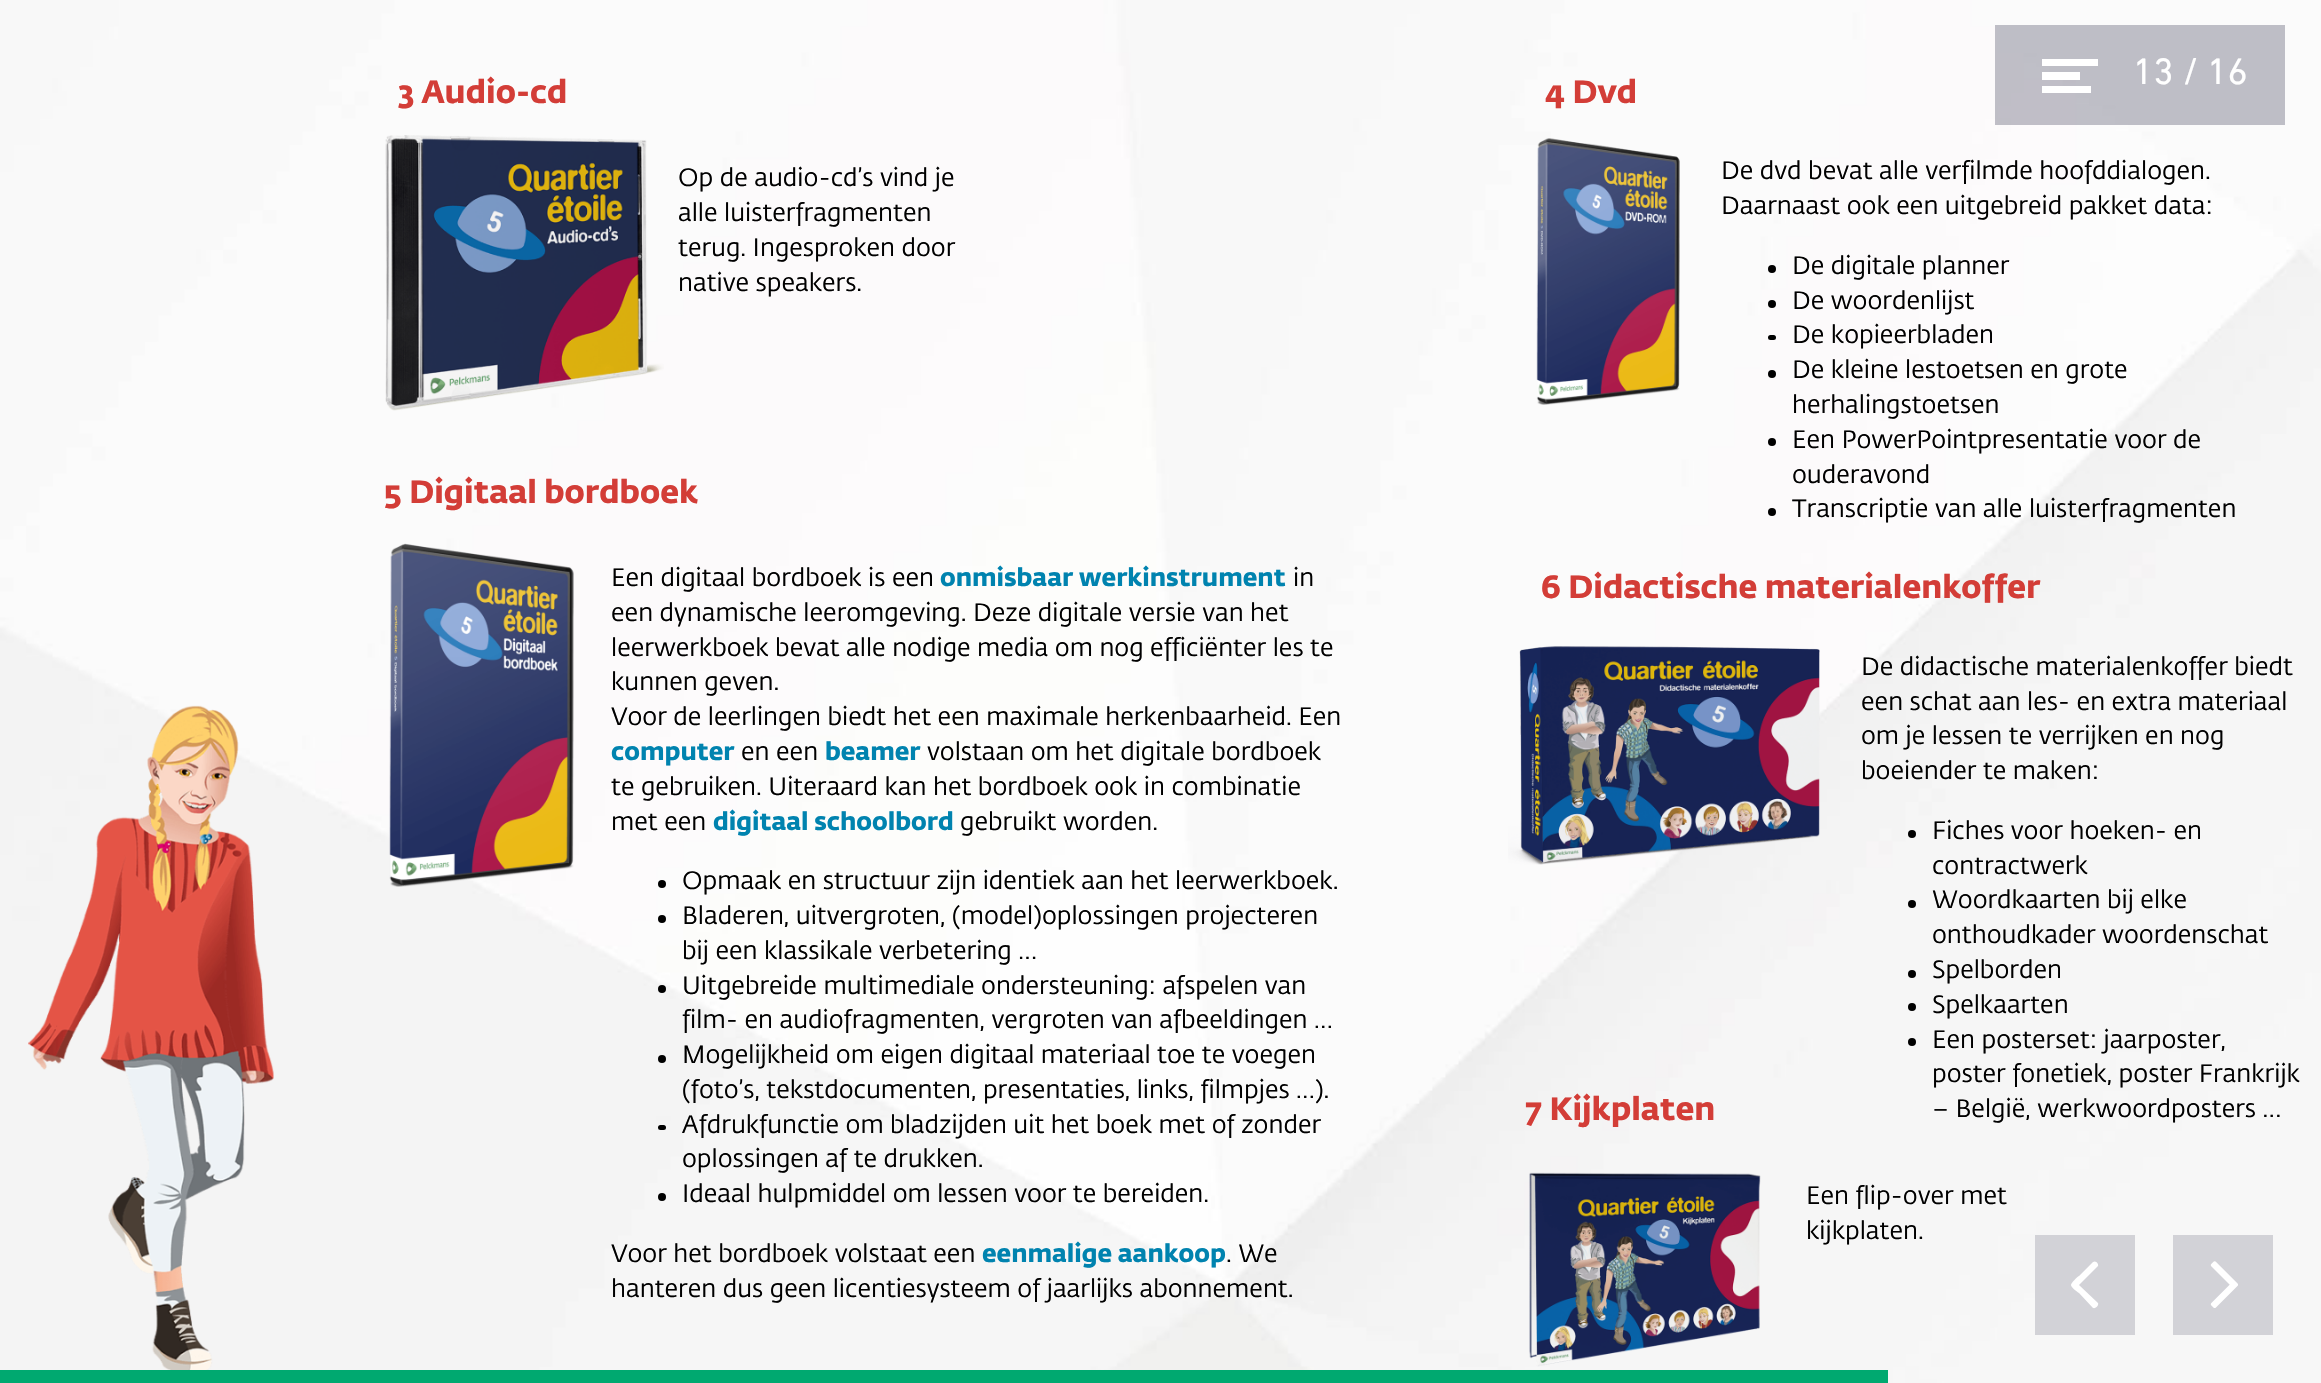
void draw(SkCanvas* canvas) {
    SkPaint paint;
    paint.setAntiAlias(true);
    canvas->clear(0xFFFFFFFF);
    canvas->drawImageRect(SkImages::DeferredFromEncodedData(SkData::MakeFromFileName("img1.png")), SkRect::MakeXYWH(0, 0, 2321, 1383), SkSamplingOptions());
    paint.setColor(0x5E56576D);
    canvas->drawRect(SkRect::MakeXYWH(1995, 25, 290, 100), paint);
    paint.setColor(0xFFFFFFFF);
    canvas->drawPath(SkPathBuilder().moveTo(2042, 59).lineTo(2098, 59).lineTo(2098, 66).lineTo(2042, 66).close().moveTo(2042, 72).lineTo(2080, 72).lineTo(2080, 80).lineTo(2042, 80).close().moveTo(2042, 86).lineTo(2091, 86).lineTo(2091, 93).lineTo(2042, 93).close().detach(), paint);
    SkFont font1(fontMgr->matchFamilyStyle("DIN Next", SkFontStyle::Normal()), 37.5f);
    font1.setSubpixel(true);
    canvas->drawString("13 / 16", 2133, 84, font1, paint);
    SkFont font2(fontMgr->matchFamilyStyle("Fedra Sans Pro", SkFontStyle::Bold()), 32);
    font2.setSubpixel(true);
    paint.setColor(0xFFD33D37);
    canvas->drawString("3 Audio-cd", 398, 103, font2, paint);
    canvas->drawImageRect(SkImages::DeferredFromEncodedData(SkData::MakeFromFileName("img2.png")), SkRect::MakeXYWH(385, 135, 279, 276), SkSamplingOptions());
    SkFont font3(fontMgr->matchFamilyStyle("Fedra Sans Pro", SkFontStyle::Normal()), 24.85f);
    font3.setSubpixel(true);
    paint.setColor(0xFF000000);
    canvas->drawString("Op de audio-cd’s vind je", 678, 186, font3, paint);
    canvas->drawString("alle luisterfragmenten", 678, 221, font3, paint);
    canvas->drawString("terug. Ingesproken door", 678, 256, font3, paint);
    canvas->drawString("native speakers.", 678, 291, font3, paint);
    paint.setColor(0xFFD33D37);
    canvas->drawString("4 Dvd", 1545, 103, font2, paint);
    canvas->drawImageRect(SkImages::DeferredFromEncodedData(SkData::MakeFromFileName("img3.png")), SkRect::MakeXYWH(1536, 138, 144, 267), SkSamplingOptions());
    paint.setColor(0xFF000000);
    canvas->drawString("De dvd bevat alle verfilmde hoofddialogen.", 1721, 179, font3, paint);
    canvas->drawString("Daarnaast ook een uitgebreid pakket data:", 1721, 214, font3, paint);
    canvas->drawCircle(1772, 269, 4, paint);
    canvas->drawString("De digitale planner", 1792, 274, font3, paint);
    canvas->drawCircle(1772, 304, 4, paint);
    canvas->drawString("De woordenlijst", 1792, 309, font3, paint);
    canvas->drawRoundRect(SkRect::MakeXYWH(1768, 335, 8, 5), 2.5f, 2.5f, paint);
    canvas->drawString("De kopieerbladen", 1792, 343, font3, paint);
    canvas->drawCircle(1772, 374, 4, paint);
    canvas->drawString("De kleine lestoetsen en grote", 1792, 378, font3, paint);
    canvas->drawString("herhalingstoetsen", 1792, 413, font3, paint);
    canvas->drawCircle(1772, 442, 4, paint);
    canvas->drawString("Een PowerPointpresentatie voor de", 1792, 448, font3, paint);
    canvas->drawString("ouderavond", 1792, 483, font3, paint);
    canvas->drawCircle(1772, 512, 4, paint);
    canvas->drawString("Transcriptie van alle luisterfragmenten", 1792, 517, font3, paint);
    canvas->drawImageRect(SkImages::DeferredFromEncodedData(SkData::MakeFromFileName("img4.png")), SkRect::MakeXYWH(28, 705, 246, 665), SkSamplingOptions());
    paint.setColor(0xFFD33D37);
    canvas->drawString("5 Digitaal bordboek", 384, 503, font2, paint);
    canvas->drawImageRect(SkImages::DeferredFromEncodedData(SkData::MakeFromFileName("img5.png")), SkRect::MakeXYWH(389, 543, 185, 344), SkSamplingOptions());
    paint.setColor(0xFF000000);
    canvas->drawString("Een digitaal bordboek is een", 611, 586, font3, paint);
    SkFont font4(fontMgr->matchFamilyStyle("Fedra Sans Pro", SkFontStyle::Bold()), 24.85f);
    font4.setSubpixel(true);
    paint.setColor(0xFF0083AF);
    canvas->drawString("onmisbaar werkinstrument", 940, 586, font4, paint);
    paint.setColor(0xFF000000);
    canvas->drawString("in", 1293, 586, font3, paint);
    canvas->drawString("een dynamische leeromgeving. Deze digitale versie van het", 611, 621, font3, paint);
    canvas->drawString("leerwerkboek bevat alle nodige media om nog efficiënter les te", 611, 656, font3, paint);
    canvas->drawString("kunnen geven.", 611, 690, font3, paint);
    canvas->drawString("Voor de leerlingen biedt het een maximale herkenbaarheid. Een", 611, 725, font3, paint);
    paint.setColor(0xFF0083AF);
    canvas->drawString("computer", 611, 760, font4, paint);
    paint.setColor(0xFF000000);
    canvas->drawString("en een", 741, 760, font3, paint);
    paint.setColor(0xFF0083AF);
    canvas->drawString("beamer", 825, 760, font4, paint);
    paint.setColor(0xFF000000);
    canvas->drawString("volstaan om het digitale bordboek", 927, 760, font3, paint);
    canvas->drawString("te gebruiken. Uiteraard kan het bordboek ook in combinatie", 611, 795, font3, paint);
    canvas->drawString("met een", 611, 830, font3, paint);
    paint.setColor(0xFF0083AF);
    canvas->drawString("digitaal schoolbord", 713, 830, font4, paint);
    paint.setColor(0xFF000000);
    canvas->drawString("gebruikt worden.", 960, 830, font3, paint);
    canvas->drawCircle(662, 884, 4, paint);
    canvas->drawString("Opmaak en structuur zijn identiek aan het leerwerkboek.", 682, 889, font3, paint);
    canvas->drawCircle(662, 919, 4, paint);
    canvas->drawString("Bladeren, uitvergroten, (model)oplossingen projecteren", 682, 924, font3, paint);
    canvas->drawString("bij een klassikale verbetering …", 682, 959, font3, paint);
    canvas->drawCircle(662, 989, 4, paint);
    canvas->drawString("Uitgebreide multimediale ondersteuning: afspelen van", 682, 994, font3, paint);
    canvas->drawString("film- en audiofragmenten, vergroten van afbeeldingen …", 682, 1028, font3, paint);
    canvas->drawCircle(662, 1059, 4, paint);
    canvas->drawString("Mogelijkheid om eigen digitaal materiaal toe te voegen", 682, 1063, font3, paint);
    canvas->drawString("(foto’s, tekstdocumenten, presentaties, links, filmpjes …).", 682, 1098, font3, paint);
    canvas->drawRoundRect(SkRect::MakeXYWH(658, 1125, 8, 5), 2.5f, 2.5f, paint);
    canvas->drawString("Afdrukfunctie om bladzijden uit het boek met of zonder", 682, 1133, font3, paint);
    canvas->drawString("oplossingen af te drukken.", 682, 1167, font3, paint);
    canvas->drawCircle(662, 1197, 4, paint);
    canvas->drawString("Ideaal hulpmiddel om lessen voor te bereiden.", 682, 1202, font3, paint);
    canvas->drawString("Voor het bordboek volstaat een", 611, 1262, font3, paint);
    paint.setColor(0xFF0083AF);
    canvas->drawString("eenmalige aankoop", 982, 1262, font4, paint);
    paint.setColor(0xFF000000);
    canvas->drawString(". We", 1226, 1262, font3, paint);
    canvas->drawString("hanteren dus geen licentiesysteem of jaarlijks abonnement.", 611, 1297, font3, paint);
    paint.setColor(0xFFD33D37);
    canvas->drawString("6 Didactische materialenkoffer", 1541, 598, font2, paint);
    canvas->drawImageRect(SkImages::DeferredFromEncodedData(SkData::MakeFromFileName("img6.png")), SkRect::MakeXYWH(1508, 646, 312, 219), SkSamplingOptions());
    paint.setColor(0xFF000000);
    canvas->drawString("De didactische materialenkoffer biedt", 1861, 675, font3, paint);
    canvas->drawString("een schat aan les- en extra materiaal", 1861, 710, font3, paint);
    canvas->drawString("om je lessen te verrijken en nog", 1861, 744, font3, paint);
    canvas->drawString("boeiender te maken:", 1861, 779, font3, paint);
    canvas->drawCircle(1912, 834, 4, paint);
    canvas->drawString("Fiches voor hoeken- en", 1932, 839, font3, paint);
    canvas->drawString("contractwerk", 1932, 874, font3, paint);
    canvas->drawCircle(1912, 904, 4, paint);
    canvas->drawString("Woordkaarten bij elke", 1932, 908, font3, paint);
    canvas->drawString("onthoudkader woordenschat", 1932, 943, font3, paint);
    canvas->drawCircle(1912, 974, 4, paint);
    canvas->drawString("Spelborden", 1932, 978, font3, paint);
    canvas->drawCircle(1912, 1007, 4, paint);
    canvas->drawString("Spelkaarten", 1932, 1013, font3, paint);
    canvas->drawCircle(1912, 1042, 4, paint);
    canvas->drawString("Een posterset: jaarposter,", 1932, 1048, font3, paint);
    canvas->drawString("poster fonetiek, poster Frankrijk", 1932, 1082, font3, paint);
    canvas->drawString("– België, werkwoordposters …", 1932, 1117, font3, paint);
    paint.setColor(0xFFD33D37);
    canvas->drawString("7 Kijkplaten", 1525, 1120, font2, paint);
    canvas->drawImageRect(SkImages::DeferredFromEncodedData(SkData::MakeFromFileName("img7.png")), SkRect::MakeXYWH(1529, 1172, 232, 195), SkSamplingOptions());
    paint.setColor(0xFF000000);
    canvas->drawString("Een flip-over met", 1806, 1204, font3, paint);
    canvas->drawString("kijkplaten.", 1806, 1239, font3, paint);
    paint.setColor(0xFFD2D2D7);
    canvas->drawRect(SkRect::MakeXYWH(2035, 1235, 100, 100), paint);
    paint.setColor(0xFFFFFFFF);
    canvas->drawPath(SkPathBuilder().moveTo(2071, 1285).cubicTo(2071, 1283, 2077, 1277, 2079, 1276).lineTo(2093, 1262).cubicTo(2096, 1260, 2099, 1264, 2098, 1266).lineTo(2079, 1285).lineTo(2098, 1303).cubicTo(2099, 1305, 2096, 1309, 2093, 1308).lineTo(2079, 1293).cubicTo(2077, 1292, 2071, 1287, 2071, 1285).close().detach(), paint);
    paint.setColor(0xFFD2D2D7);
    canvas->drawRect(SkRect::MakeXYWH(2173, 1235, 100, 100), paint);
    canvas->drawImageRect(SkImages::DeferredFromEncodedData(SkData::MakeFromFileName("img8.png")), SkRect::MakeXYWH(2210, 1261, 28, 47), SkSamplingOptions());
    paint.setColor(0xFF00A970);
    canvas->drawRect(SkRect::MakeXYWH(0, 1370, 1888, 13), paint);
}
